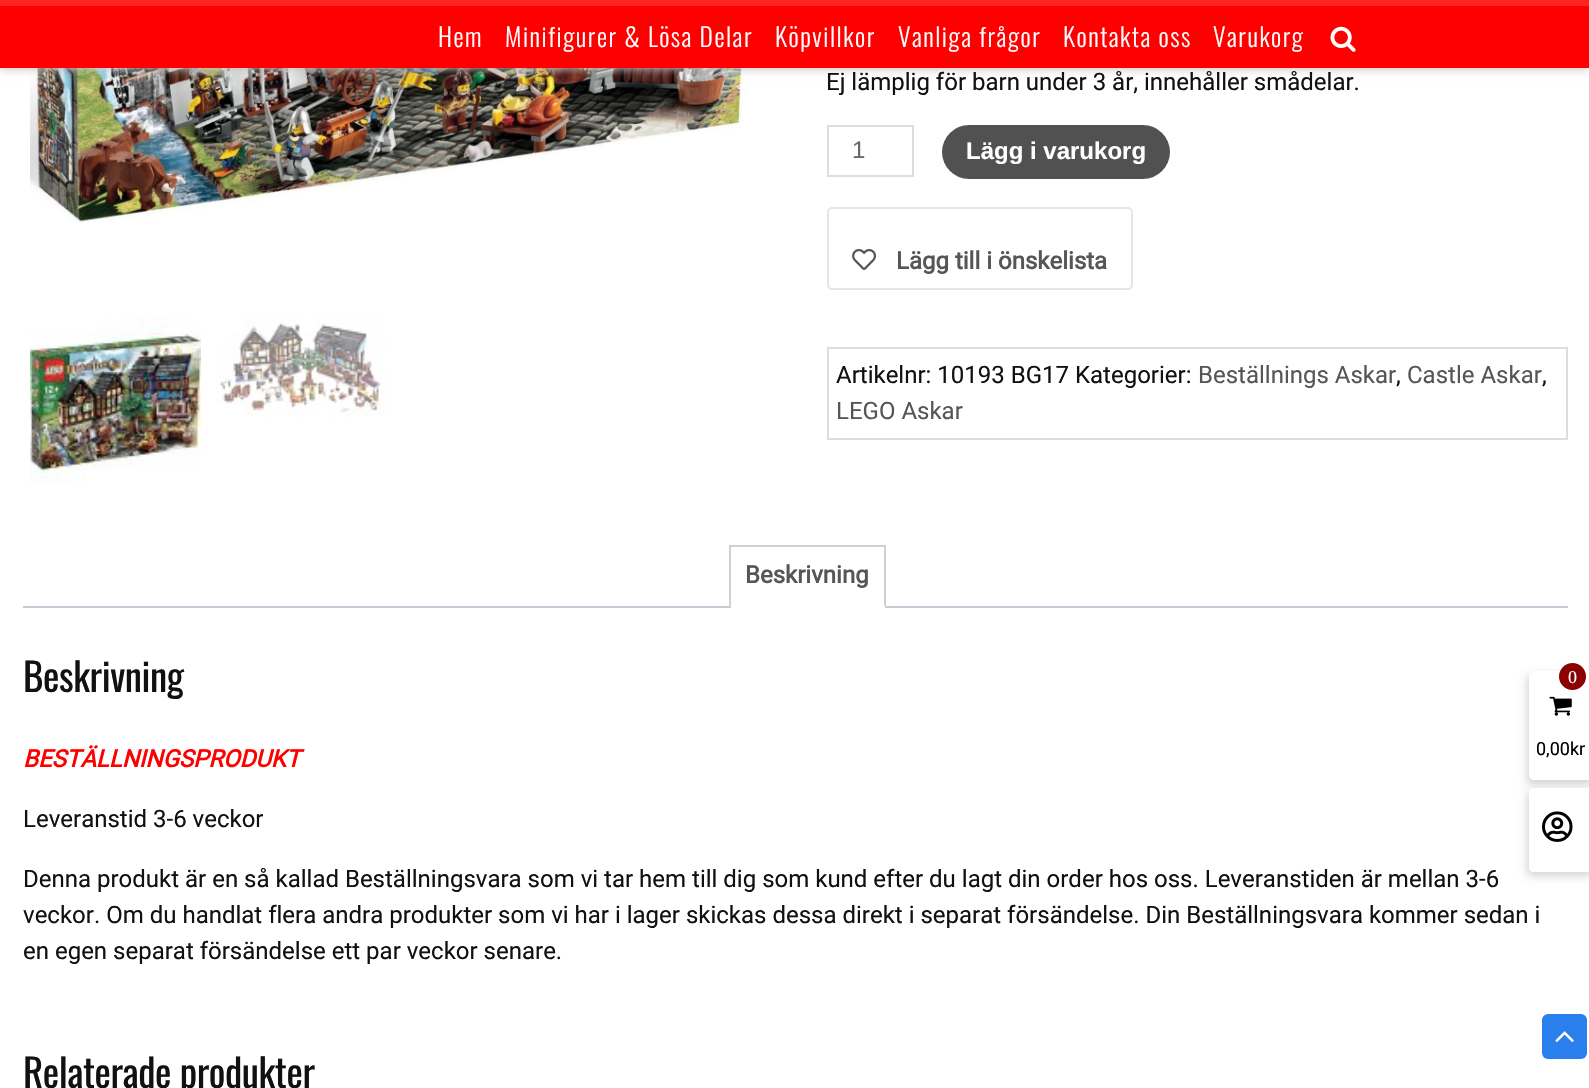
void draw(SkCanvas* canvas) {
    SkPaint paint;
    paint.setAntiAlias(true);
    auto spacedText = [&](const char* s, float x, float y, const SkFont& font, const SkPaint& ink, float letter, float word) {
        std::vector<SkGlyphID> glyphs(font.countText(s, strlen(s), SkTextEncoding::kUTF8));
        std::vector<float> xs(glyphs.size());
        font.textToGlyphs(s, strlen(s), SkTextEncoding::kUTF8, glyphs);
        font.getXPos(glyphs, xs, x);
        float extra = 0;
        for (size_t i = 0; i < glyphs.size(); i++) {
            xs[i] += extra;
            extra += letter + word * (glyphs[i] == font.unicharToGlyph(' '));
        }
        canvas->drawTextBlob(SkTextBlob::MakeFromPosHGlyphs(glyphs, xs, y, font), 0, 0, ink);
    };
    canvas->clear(0xFFFFFFFF);
    canvas->drawImageRect(SkImages::DeferredFromEncodedData(SkData::MakeFromFileName("img2.png")), SkRect::MakeXYWH(30, 68, 719, 155), SkSamplingOptions());
    paint.setColor(0xFFC4C4C4);
    paint.setMaskFilter(SkMaskFilter::MakeBlur(kNormal_SkBlurStyle, 4.5f));
    canvas->drawRect(SkRect::MakeXYWH(0, 2, 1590, 67), paint);
    paint.setMaskFilter(nullptr);
    paint.setColor(0xFFFF2323);
    canvas->drawRect(SkRect::MakeXYWH(0, 0, 1589, 6), paint);
    paint.setColor(0xFFFF0000);
    canvas->drawRect(SkRect::MakeXYWH(0, 6, 1589, 62), paint);
    SkFont font1(fontMgr->matchFamilyStyle("Oswald", SkFontStyle(300, SkFontStyle::kNormal_Width, SkFontStyle::kUpright_Slant)), 25.5f);
    font1.setSubpixel(true);
    paint.setColor(0xFFFFFFFF);
    spacedText("Hem", 438, 47, font1, paint, 1.5f, 0);
    spacedText("Minifigurer & Lösa Delar", 505, 47, font1, paint, 1.5f, 0);
    spacedText("Köpvillkor", 775, 47, font1, paint, 1.5f, 0);
    spacedText("Vanliga frågor", 898, 47, font1, paint, 1.5f, 0);
    spacedText("Kontakta oss", 1063, 47, font1, paint, 1.5f, 0);
    spacedText("Varukorg", 1213, 47, font1, paint, 1.5f, 0);
    canvas->drawImageRect(SkImages::DeferredFromEncodedData(SkData::MakeFromFileName("img1.png")), SkRect::MakeXYWH(1330, 26, 26, 26), SkSamplingOptions());
    canvas->drawImageRect(SkImages::DeferredFromEncodedData(SkData::MakeFromFileName("img3.png")), SkRect::MakeXYWH(30, 317, 171, 166), SkSamplingOptions());
    canvas->drawImageRect(SkImages::DeferredFromEncodedData(SkData::MakeFromFileName("img4.png")), SkRect::MakeXYWH(216, 318, 170, 99), SkSamplingOptions());
    SkFont font2(fontMgr->matchFamilyStyle("Roboto", SkFontStyle::Normal()), 24);
    font2.setSubpixel(true);
    paint.setColor(0xFF111111);
    canvas->drawString("Ej lämplig för barn under 3 år, innehåller smådelar.", 826, 90, font2, paint);
    paint.setStyle(SkPaint::kStroke_Style);
    paint.setStrokeWidth(2);
    paint.setColor(0xFFDDDDDD);
    canvas->drawRect(SkRect::MakeXYWH(828, 126, 85, 50), paint);
    SkFont font3(fontMgr->matchFamilyStyle("Liberation Sans", SkFontStyle::Normal()), 24);
    font3.setSubpixel(true);
    paint.setStyle(SkPaint::kFill_Style);
    paint.setColor(0xFF666666);
    canvas->drawString("1", 852, 158, font3, paint);
    paint.setColor(0xFF515151);
    canvas->drawRoundRect(SkRect::MakeXYWH(942, 125, 228, 54), 27, 27, paint);
    SkFont font4(fontMgr->matchFamilyStyle("Liberation Sans", SkFontStyle::Bold()), 24);
    font4.setSubpixel(true);
    paint.setColor(0xFFFFFFFF);
    canvas->drawString("Lägg i varukorg", 966, 159, font4, paint);
    paint.setStyle(SkPaint::kStroke_Style);
    paint.setColor(0xFFE6E6E6);
    canvas->drawRoundRect(SkRect::MakeXYWH(828, 208, 304, 81), 4, 4, paint);
    canvas->drawImageRect(SkImages::DeferredFromEncodedData(SkData::MakeFromFileName("img5.png")), SkRect::MakeXYWH(852, 249, 24, 21), SkSamplingOptions());
    SkFont font5(fontMgr->matchFamilyStyle("Roboto", SkFontStyle::Bold()), 24);
    font5.setSubpixel(true);
    paint.setStyle(SkPaint::kFill_Style);
    paint.setColor(0xFF565656);
    canvas->drawString("Lägg till i önskelista", 896, 269, font5, paint);
    paint.setStyle(SkPaint::kStroke_Style);
    paint.setColor(0xFFDDDDDD);
    canvas->drawRect(SkRect::MakeXYWH(828, 348, 739, 91), paint);
    paint.setStyle(SkPaint::kFill_Style);
    paint.setColor(0xFF111111);
    canvas->drawString("Artikelnr: 10193 BG17 Kategorier:", 836, 383, font2, paint);
    paint.setColor(0xFF565656);
    canvas->drawString("Beställnings Askar", 1198, 383, font2, paint);
    paint.setColor(0xFF111111);
    canvas->drawString(",", 1396, 383, font2, paint);
    paint.setColor(0xFF565656);
    canvas->drawString("Castle Askar", 1407, 383, font2, paint);
    paint.setColor(0xFF111111);
    canvas->drawString(",", 1542, 383, font2, paint);
    paint.setColor(0xFF565656);
    canvas->drawString("LEGO Askar", 836, 419, font2, paint);
    paint.setColor(0xFFD3CED2);
    canvas->drawRect(SkRect::MakeXYWH(729, 545, 156, 2), paint);
    paint.setColor(0xFFCFC8D8);
    canvas->drawRect(SkRect::MakeXYWH(23, 606, 1545, 2), paint);
    paint.setColor(0xFFD3CED2);
    canvas->drawRect(SkRect::MakeXYWH(884, 545, 2, 63), paint);
    paint.setColor(0xFFFFFFFF);
    canvas->drawRect(SkRect::MakeXYWH(729, 606, 156, 2), paint);
    paint.setColor(0xFFD3CED2);
    canvas->drawRect(SkRect::MakeXYWH(729, 545, 2, 63), paint);
    paint.setColor(0xFF565656);
    canvas->drawString("Beskrivning", 745, 583, font5, paint);
    SkFont font6(fontMgr->matchFamilyStyle("Oswald", SkFontStyle::Normal()), 39);
    font6.setSubpixel(true);
    paint.setColor(0xFF111111);
    spacedText("Beskrivning", 23, 692, font6, paint, -0.4f, 0);
    SkFont font7(fontMgr->matchFamilyStyle("Roboto", SkFontStyle::BoldItalic()), 24);
    font7.setSubpixel(true);
    paint.setColor(0xFFFF0000);
    canvas->drawString("BESTÄLLNINGSPRODUKT", 23, 767, font7, paint);
    paint.setColor(0xFF111111);
    canvas->drawString("Leveranstid 3-6 veckor", 23, 827, font2, paint);
    canvas->drawString("Denna produkt är en så kallad Beställningsvara som vi tar hem till dig som kund efter du lagt din order hos oss. Leveranstiden är mellan 3-6", 23, 887, font2, paint);
    canvas->drawString("veckor. Om du handlat flera andra produkter som vi har i lager skickas dessa direkt i separat försändelse. Din Beställningsvara kommer sedan i", 23, 923, font2, paint);
    canvas->drawString("en egen separat försändelse ett par veckor senare.", 23, 959, font2, paint);
    spacedText("Relaterade produkter", 23, 1088, font6, paint, -0.4f, 0);
    paint.setColor(0xFF297FEC);
    canvas->drawRoundRect(SkRect::MakeXYWH(1542, 1014, 45, 45), 6, 6, paint);
    canvas->drawImageRect(SkImages::DeferredFromEncodedData(SkData::MakeFromFileName("img6.png")), SkRect::MakeXYWH(1555, 1031, 19, 11), SkSamplingOptions());
    paint.setColor(0xFFD4D4D4);
    paint.setMaskFilter(SkMaskFilter::MakeBlur(kNormal_SkBlurStyle, 4));
    canvas->drawRoundRect(SkRect::MakeXYWH(1527, 675, 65, 110), 5, 5, paint);
    paint.setMaskFilter(nullptr);
    paint.setColor(0xFFFFFFFF);
    canvas->drawRoundRect(SkRect::MakeXYWH(1529, 671, 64, 109), 5, 5, paint);
    paint.setColor(0xFF8B0000);
    canvas->drawCircle(1572.5f, 676.5f, 13.5f, paint);
    SkFont font8(fontMgr->matchFamilyStyle("Liberation Serif", SkFontStyle::Normal()), 18);
    font8.setSubpixel(true);
    paint.setColor(0xFFFFFFFF);
    canvas->drawString("0", 1568, 683, font8, paint);
    canvas->drawImageRect(SkImages::DeferredFromEncodedData(SkData::MakeFromFileName("img7.png")), SkRect::MakeXYWH(1549, 696, 23, 20), SkSamplingOptions());
    SkFont font9(fontMgr->matchFamilyStyle("Roboto", SkFontStyle::Normal()), 18);
    font9.setSubpixel(true);
    paint.setColor(0xFF000000);
    canvas->drawString("0,00kr", 1536, 755, font9, paint);
    canvas->save();
    canvas->clipPath(SkPathBuilder(SkPathFillType::kEvenOdd).moveTo(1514, 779).lineTo(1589, 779).lineTo(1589, 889).lineTo(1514, 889).close().moveTo(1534, 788).lineTo(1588, 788).cubicTo(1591, 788, 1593, 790, 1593, 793).lineTo(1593, 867).cubicTo(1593, 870, 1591, 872, 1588, 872).lineTo(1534, 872).cubicTo(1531, 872, 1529, 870, 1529, 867).lineTo(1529, 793).cubicTo(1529, 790, 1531, 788, 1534, 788).close().detach(), true);
    paint.setColor(0xFFD4D4D4);
    paint.setMaskFilter(SkMaskFilter::MakeBlur(kNormal_SkBlurStyle, 4));
    canvas->drawRoundRect(SkRect::MakeXYWH(1527, 792, 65, 84), 5, 5, paint);
    paint.setMaskFilter(nullptr);
    canvas->restore();
    paint.setColor(0xE8FFFFFF);
    canvas->drawRoundRect(SkRect::MakeXYWH(1529, 788, 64, 84), 5, 5, paint);
    canvas->drawImageRect(SkImages::DeferredFromEncodedData(SkData::MakeFromFileName("img8.png")), SkRect::MakeXYWH(1542, 811, 31, 31), SkSamplingOptions());
}
